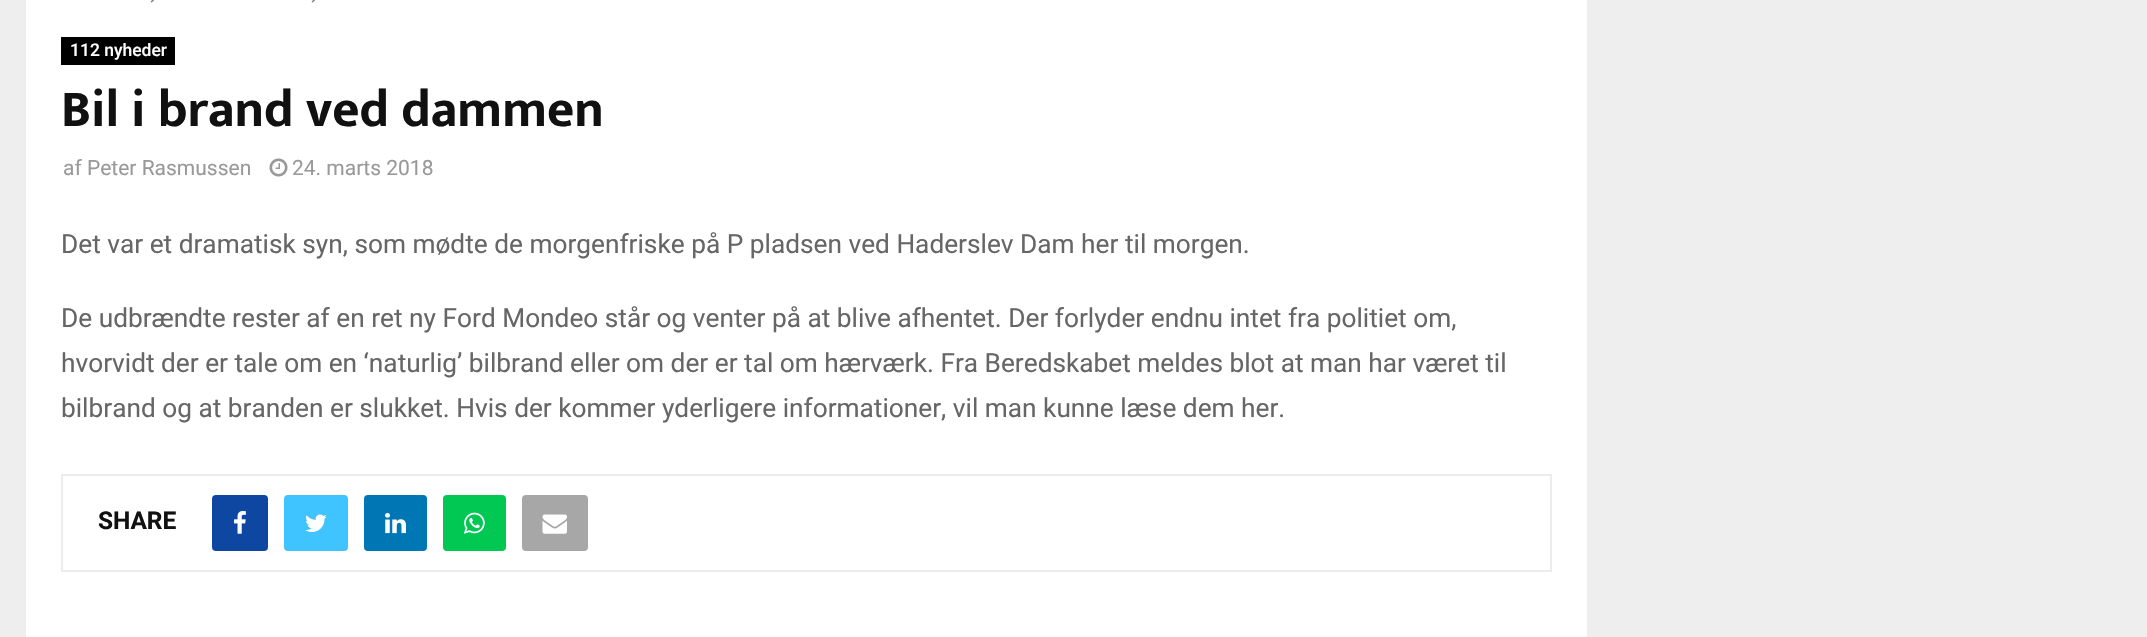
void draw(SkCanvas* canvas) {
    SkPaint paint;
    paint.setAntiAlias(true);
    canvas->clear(0xFFEEEEEE);
    paint.setColor(0xFFFFFFFF);
    canvas->drawRect(SkRect::MakeXYWH(26, 0, 1561, 637), paint);
    canvas->drawImageRect(SkImages::DeferredFromEncodedData(SkData::MakeFromFileName("img1.png")), SkRect::MakeXYWH(150, 0, 5, 3), SkSamplingOptions());
    canvas->drawImageRect(SkImages::DeferredFromEncodedData(SkData::MakeFromFileName("img1.png")), SkRect::MakeXYWH(311, 0, 5, 3), SkSamplingOptions());
    paint.setColor(0xFF000000);
    canvas->drawRect(SkRect::MakeXYWH(61, 37, 114, 28), paint);
    SkFont font1(fontMgr->matchFamilyStyle("Roboto", SkFontStyle(500, SkFontStyle::kNormal_Width, SkFontStyle::kUpright_Slant)), 17.5f);
    font1.setSubpixel(true);
    paint.setColor(0xFFFFFFFF);
    canvas->drawString("112 nyheder", 70, 56, font1, paint);
    SkFont font2(fontMgr->matchFamilyStyle("Mukta Vaani", SkFontStyle::Bold()), 52.5f);
    font2.setSubpixel(true);
    paint.setColor(0xFF111111);
    canvas->drawString("Bil i brand ved dammen", 61, 126, font2, paint);
    SkFont font3(fontMgr->matchFamilyStyle("Roboto", SkFontStyle::Normal()), 21);
    font3.setSubpixel(true);
    paint.setColor(0xFF999999);
    canvas->drawString("af Peter Rasmussen", 63, 175, font3, paint);
    canvas->drawImageRect(SkImages::DeferredFromEncodedData(SkData::MakeFromFileName("img2.png")), SkRect::MakeXYWH(269, 158, 19, 19), SkSamplingOptions());
    canvas->drawString("24. marts 2018", 292, 175, font3, paint);
    SkFont font4(fontMgr->matchFamilyStyle("Roboto", SkFontStyle::Normal()), 26.25f);
    font4.setSubpixel(true);
    paint.setColor(0xFF666666);
    canvas->drawString("Det var et dramatisk syn, som mødte de morgenfriske på P pladsen ved Haderslev Dam her til morgen.", 61, 253, font4, paint);
    canvas->drawString("De udbrændte rester af en ret ny Ford Mondeo står og venter på at blive afhentet. Der forlyder endnu intet fra politiet om,", 61, 327, font4, paint);
    canvas->drawString("hvorvidt der er tale om en ‘naturlig’ bilbrand eller om der er tal om hærværk. Fra Beredskabet meldes blot at man har været til", 61, 372, font4, paint);
    canvas->drawString("bilbrand og at branden er slukket. Hvis der kommer yderligere informationer, vil man kunne læse dem her.", 61, 417, font4, paint);
    paint.setStyle(SkPaint::kStroke_Style);
    paint.setStrokeWidth(2);
    paint.setColor(0xFFECECEC);
    canvas->drawRect(SkRect::MakeXYWH(62, 475, 1489, 96), paint);
    SkFont font5(fontMgr->matchFamilyStyle("Roboto", SkFontStyle::Bold()), 24.5f);
    font5.setSubpixel(true);
    paint.setStyle(SkPaint::kFill_Style);
    paint.setColor(0xFF111111);
    canvas->drawString("SHARE", 98, 529, font5, paint);
    paint.setColor(0xFF0D47A1);
    canvas->drawRoundRect(SkRect::MakeXYWH(212, 495, 56, 56), 4, 4, paint);
    canvas->drawImageRect(SkImages::DeferredFromEncodedData(SkData::MakeFromFileName("img3.png")), SkRect::MakeXYWH(234, 511, 12, 23), SkSamplingOptions());
    paint.setColor(0xFF40C4FF);
    canvas->drawRoundRect(SkRect::MakeXYWH(284, 495, 64, 56), 4, 4, paint);
    canvas->drawImageRect(SkImages::DeferredFromEncodedData(SkData::MakeFromFileName("img4.png")), SkRect::MakeXYWH(305, 514, 22, 18), SkSamplingOptions());
    paint.setColor(0xFF0077B5);
    canvas->drawRoundRect(SkRect::MakeXYWH(364, 495, 63, 56), 4, 4, paint);
    canvas->drawImageRect(SkImages::DeferredFromEncodedData(SkData::MakeFromFileName("img5.png")), SkRect::MakeXYWH(385, 513, 21, 21), SkSamplingOptions());
    paint.setColor(0xFF00C853);
    canvas->drawRoundRect(SkRect::MakeXYWH(443, 495, 63, 56), 4, 4, paint);
    canvas->drawImageRect(SkImages::DeferredFromEncodedData(SkData::MakeFromFileName("img6.png")), SkRect::MakeXYWH(463, 512, 22, 22), SkSamplingOptions());
    paint.setColor(0xFFA7A7A7);
    canvas->drawRoundRect(SkRect::MakeXYWH(522, 495, 66, 56), 4, 4, paint);
    canvas->drawImageRect(SkImages::DeferredFromEncodedData(SkData::MakeFromFileName("img7.png")), SkRect::MakeXYWH(542, 514, 25, 20), SkSamplingOptions());
}
